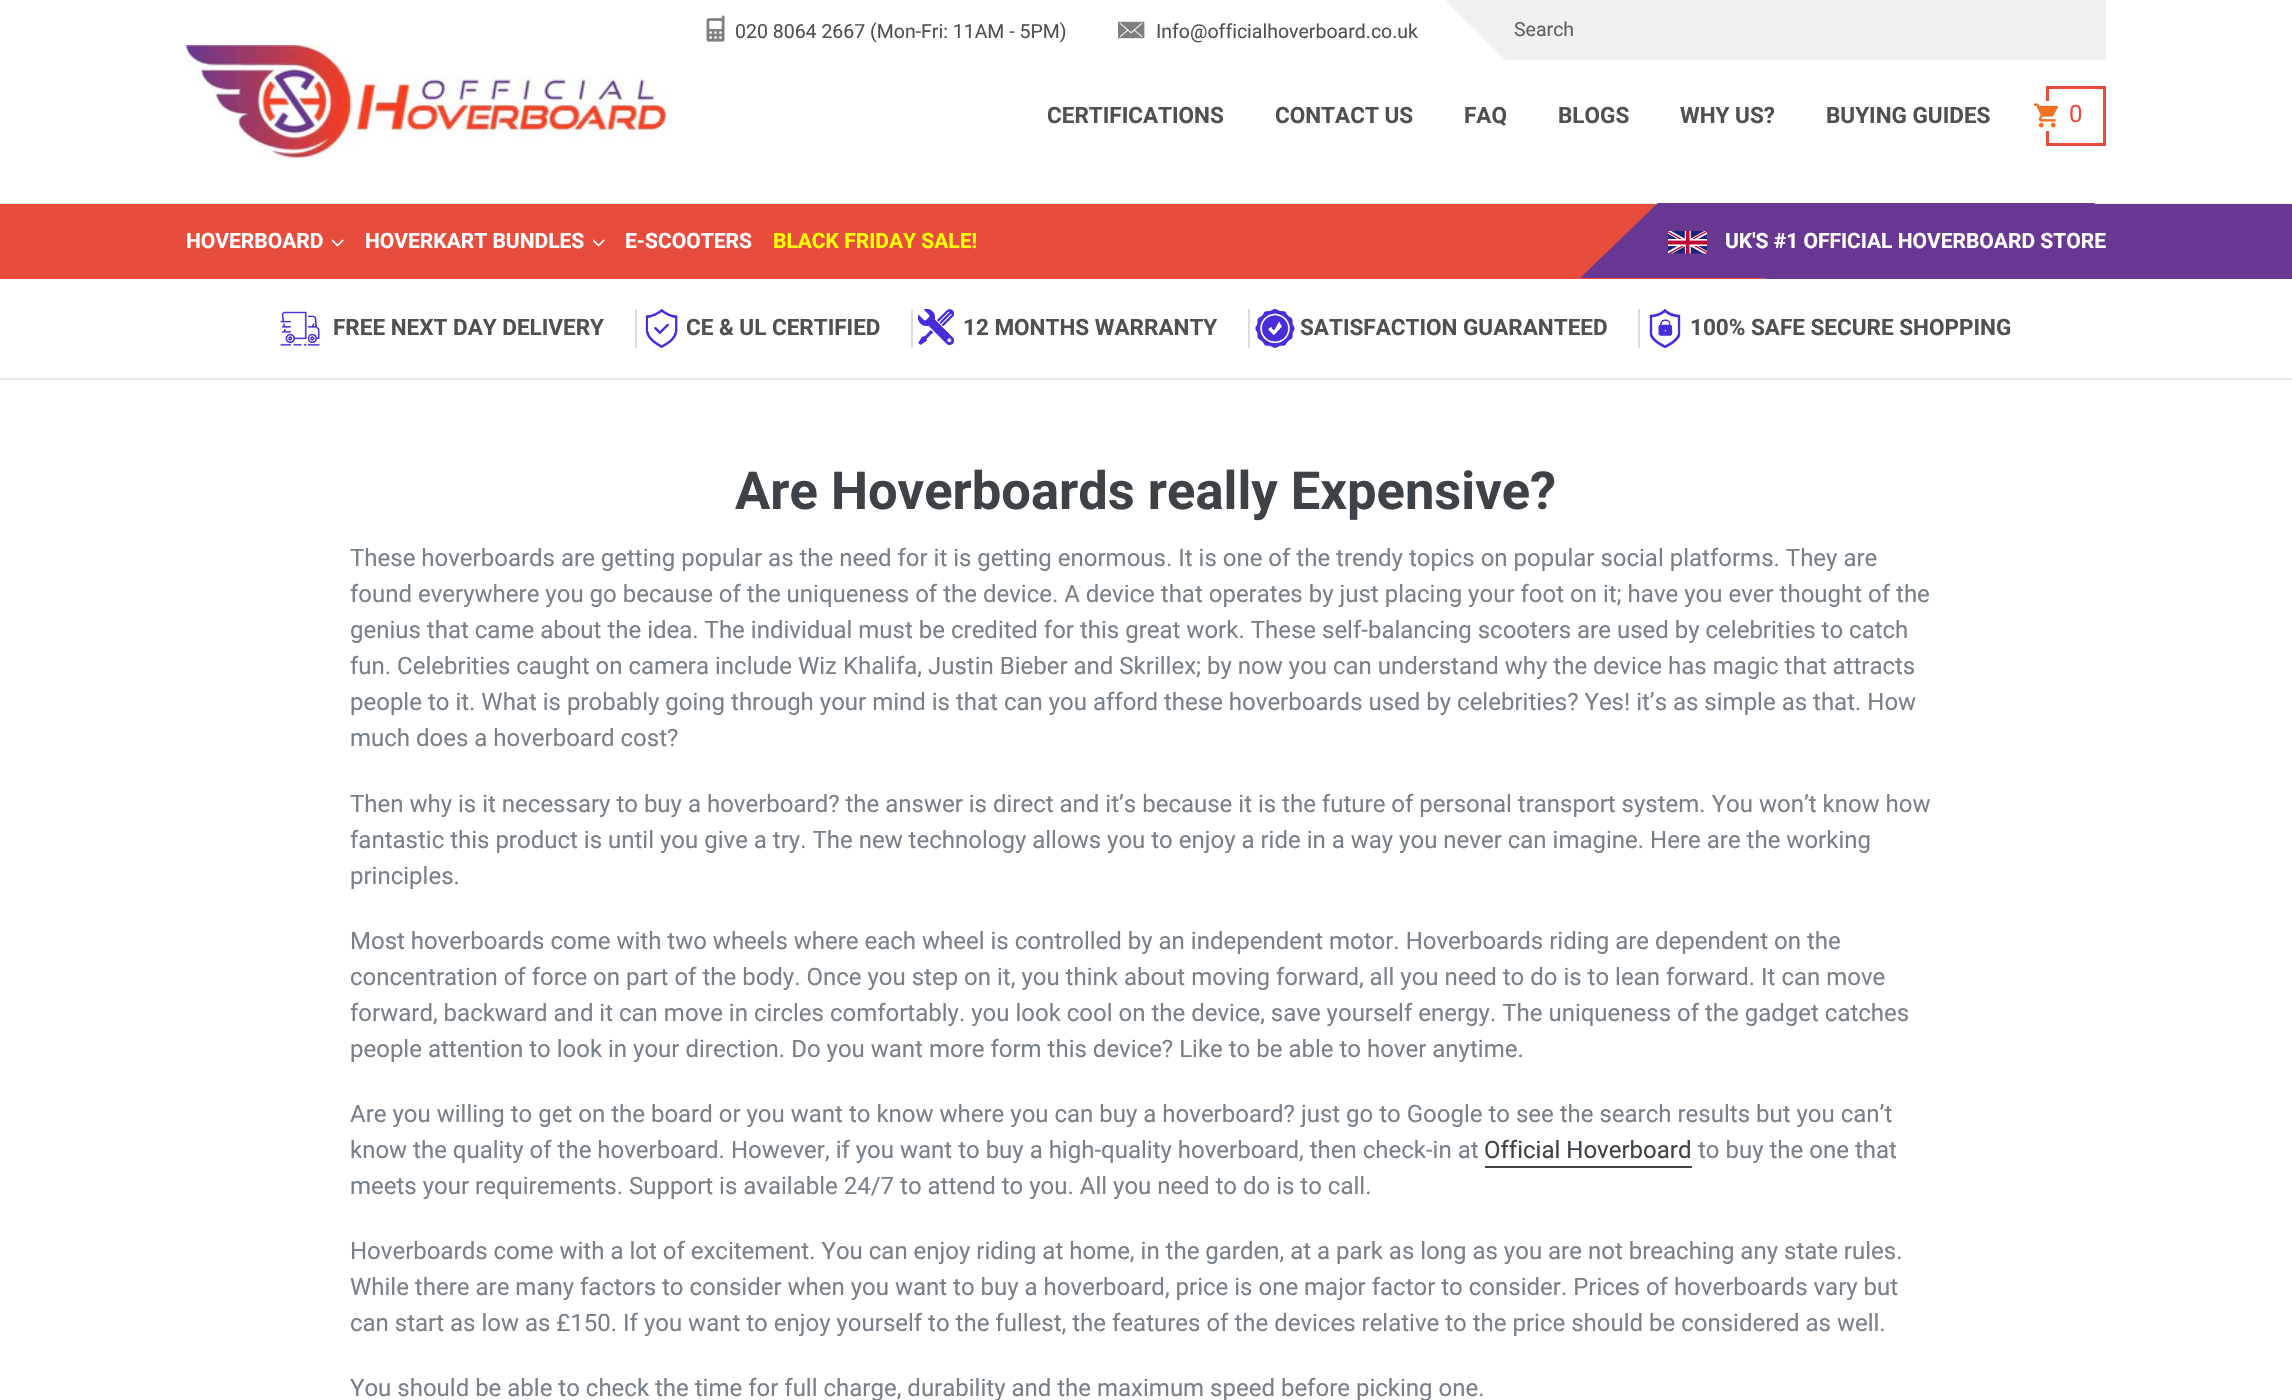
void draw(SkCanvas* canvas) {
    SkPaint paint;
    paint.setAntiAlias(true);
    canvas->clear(0xFFFFFFFF);
    paint.setColor(0xFFE8E9EB);
    canvas->drawRect(SkRect::MakeXYWH(0, 203, 2292, 1), paint);
    canvas->drawImageRect(SkImages::DeferredFromEncodedData(SkData::MakeFromFileName("img1.png")), SkRect::MakeXYWH(186, 45, 480, 113), SkSamplingOptions());
    canvas->drawImageRect(SkImages::DeferredFromEncodedData(SkData::MakeFromFileName("img2.png")), SkRect::MakeXYWH(706, 15, 19, 27), SkSamplingOptions());
    SkFont font1(fontMgr->matchFamilyStyle("Roboto", SkFontStyle::Normal()), 19.5f);
    font1.setSubpixel(true);
    paint.setColor(0xFF505050);
    canvas->drawString("020 8064 2667 (Mon-Fri: 11AM - 5PM)", 735, 38, font1, paint);
    canvas->drawImageRect(SkImages::DeferredFromEncodedData(SkData::MakeFromFileName("img3.png")), SkRect::MakeXYWH(1118, 21, 27, 18), SkSamplingOptions());
    canvas->drawString("Info@officialhoverboard.co.uk", 1156, 38, font1, paint);
    canvas->drawImageRect(SkImages::DeferredFromEncodedData(SkData::MakeFromFileName("img4.png")), SkRect::MakeXYWH(1446, 0, 660, 60), SkSamplingOptions());
    paint.setColor(0xFF606060);
    canvas->drawString("Search", 1514, 36, font1, paint);
    SkFont font2(fontMgr->matchFamilyStyle("Roboto", SkFontStyle::Bold()), 22.5f);
    font2.setSubpixel(true);
    paint.setColor(0xFF505050);
    canvas->drawString("CERTIFICATIONS", 1047, 123, font2, paint);
    canvas->drawString("CONTACT US", 1275, 123, font2, paint);
    canvas->drawString("FAQ", 1464, 123, font2, paint);
    canvas->drawString("BLOGS", 1558, 123, font2, paint);
    canvas->drawString("WHY US?", 1680, 123, font2, paint);
    canvas->drawString("BUYING GUIDES", 1826, 123, font2, paint);
    paint.setStyle(SkPaint::kStroke_Style);
    paint.setStrokeWidth(3);
    paint.setColor(0xFFE84C3D);
    canvas->drawRect(SkRect::MakeXYWH(2047.5f, 87.5f, 57, 57), paint);
    paint.setStyle(SkPaint::kFill_Style);
    paint.setColor(0xFFFFFFFF);
    canvas->drawRect(SkRect::MakeXYWH(2046, 101, 3, 30), paint);
    canvas->drawImageRect(SkImages::DeferredFromEncodedData(SkData::MakeFromFileName("img5.png")), SkRect::MakeXYWH(2034, 103, 24, 25), SkSamplingOptions());
    SkFont font3(fontMgr->matchFamilyStyle("Roboto", SkFontStyle::Normal()), 24);
    font3.setSubpixel(true);
    paint.setColor(0xFFE84C3D);
    canvas->drawString("0", 2069, 122, font3, paint);
    canvas->drawRect(SkRect::MakeXYWH(0, 204, 1766, 75), paint);
    paint.setColor(0xFF673791);
    canvas->drawRect(SkRect::MakeXYWH(1766, 204, 526, 75), paint);
    SkFont font4(fontMgr->matchFamilyStyle("Roboto", SkFontStyle::Bold()), 21);
    font4.setSubpixel(true);
    paint.setColor(0xFFFFFFFF);
    canvas->drawString("HOVERBOARD", 186, 248, font4, paint);
    canvas->drawImageRect(SkImages::DeferredFromEncodedData(SkData::MakeFromFileName("img6.png")), SkRect::MakeXYWH(332, 239, 12, 8), SkSamplingOptions());
    canvas->drawString("HOVERKART BUNDLES", 365, 248, font4, paint);
    canvas->drawImageRect(SkImages::DeferredFromEncodedData(SkData::MakeFromFileName("img6.png")), SkRect::MakeXYWH(593, 239, 12, 8), SkSamplingOptions());
    canvas->drawString("E-SCOOTERS", 625, 248, font4, paint);
    paint.setColor(0xFFFFFF00);
    canvas->drawString("BLACK FRIDAY SALE!", 773, 248, font4, paint);
    paint.setColor(0xFF673791);
    canvas->drawPath(SkPathBuilder().moveTo(1658, 203).lineTo(2095, 203).lineTo(2018, 278).lineTo(1580, 278).close().detach(), paint);
    canvas->drawImageRect(SkImages::DeferredFromEncodedData(SkData::MakeFromFileName("img7.png")), SkRect::MakeXYWH(1668, 231, 39, 23), SkSamplingOptions());
    paint.setColor(0xFFFFFFFF);
    canvas->drawString("UK'S #1 OFFICIAL HOVERBOARD STORE", 1725, 248, font4, paint);
    paint.setColor(0xFFE8E9EB);
    canvas->drawRect(SkRect::MakeXYWH(0, 378, 2292, 2), paint);
    canvas->drawImageRect(SkImages::DeferredFromEncodedData(SkData::MakeFromFileName("img8.png")), SkRect::MakeXYWH(280, 311, 40, 35), SkSamplingOptions());
    paint.setColor(0xFFDCDCDC);
    canvas->drawRect(SkRect::MakeXYWH(635, 309, 2, 39), paint);
    paint.setColor(0xFF505050);
    canvas->drawString("FREE NEXT DAY DELIVERY", 333, 335, font2, paint);
    canvas->drawImageRect(SkImages::DeferredFromEncodedData(SkData::MakeFromFileName("img9.png")), SkRect::MakeXYWH(645, 309, 33, 39), SkSamplingOptions());
    paint.setColor(0xFFDCDCDC);
    canvas->drawRect(SkRect::MakeXYWH(911, 309, 2, 39), paint);
    paint.setColor(0xFF505050);
    canvas->drawString("CE & UL CERTIFIED", 686, 335, font2, paint);
    canvas->drawImageRect(SkImages::DeferredFromEncodedData(SkData::MakeFromFileName("img10.png")), SkRect::MakeXYWH(918, 309, 36, 36), SkSamplingOptions());
    paint.setColor(0xFFDCDCDC);
    canvas->drawRect(SkRect::MakeXYWH(1248, 309, 2, 39), paint);
    paint.setColor(0xFF505050);
    canvas->drawString("12 MONTHS WARRANTY", 963, 335, font2, paint);
    canvas->drawImageRect(SkImages::DeferredFromEncodedData(SkData::MakeFromFileName("img11.png")), SkRect::MakeXYWH(1255, 309, 40, 39), SkSamplingOptions());
    paint.setColor(0xFFDCDCDC);
    canvas->drawRect(SkRect::MakeXYWH(1638, 309, 2, 39), paint);
    paint.setColor(0xFF505050);
    canvas->drawString("SATISFACTION GUARANTEED", 1300, 335, font2, paint);
    canvas->drawImageRect(SkImages::DeferredFromEncodedData(SkData::MakeFromFileName("img12.png")), SkRect::MakeXYWH(1649, 309, 32, 39), SkSamplingOptions());
    canvas->drawString("100% SAFE SECURE SHOPPING", 1690, 335, font2, paint);
    SkFont font5(fontMgr->matchFamilyStyle("Roboto", SkFontStyle::Bold()), 52.5f);
    font5.setSubpixel(true);
    paint.setColor(0xFF3D4246);
    canvas->drawString("Are Hoverboards really Expensive?", 735, 509, font5, paint);
    paint.setColor(0xFF788188);
    canvas->drawString("These hoverboards are getting popular as the need for it is getting enormous. It is one of the trendy topics on popular social platforms. They are", 350, 566, font3, paint);
    canvas->drawString("found everywhere you go because of the uniqueness of the device. A device that operates by just placing your foot on it; have you ever thought of the", 350, 602, font3, paint);
    canvas->drawString("genius that came about the idea. The individual must be credited for this great work. These self-balancing scooters are used by celebrities to catch", 350, 638, font3, paint);
    canvas->drawString("fun. Celebrities caught on camera include Wiz Khalifa, Justin Bieber and Skrillex; by now you can understand why the device has magic that attracts", 350, 674, font3, paint);
    canvas->drawString("people to it. What is probably going through your mind is that can you afford these hoverboards used by celebrities? Yes! it’s as simple as that. How", 350, 710, font3, paint);
    canvas->drawString("much does a hoverboard cost?", 350, 746, font3, paint);
    canvas->drawString("Then why is it necessary to buy a hoverboard? the answer is direct and it’s because it is the future of personal transport system. You won’t know how", 350, 812, font3, paint);
    canvas->drawString("fantastic this product is until you give a try. The new technology allows you to enjoy a ride in a way you never can imagine. Here are the working", 350, 848, font3, paint);
    canvas->drawString("principles.", 350, 884, font3, paint);
    canvas->drawString("Most hoverboards come with two wheels where each wheel is controlled by an independent motor. Hoverboards riding are dependent on the", 350, 949, font3, paint);
    canvas->drawString("concentration of force on part of the body. Once you step on it, you think about moving forward, all you need to do is to lean forward. It can move", 350, 985, font3, paint);
    canvas->drawString("forward, backward and it can move in circles comfortably. you look cool on the device, save yourself energy. The uniqueness of the gadget catches", 350, 1021, font3, paint);
    canvas->drawString("people attention to look in your direction. Do you want more form this device? Like to be able to hover anytime.", 350, 1057, font3, paint);
    canvas->drawString("Are you willing to get on the board or you want to know where you can buy a hoverboard? just go to Google to see the search results but you can’t", 350, 1122, font3, paint);
    canvas->drawString("know the quality of the hoverboard. However, if you want to buy a high-quality hoverboard, then check-in at", 350, 1158, font3, paint);
    paint.setColor(0xFF3D4246);
    canvas->drawString("Official Hoverboard", 1484, 1158, font3, paint);
    canvas->drawRect(SkRect::MakeXYWH(1485, 1166, 207, 2), paint);
    paint.setColor(0xFF788188);
    canvas->drawString("to buy the one that", 1698, 1158, font3, paint);
    canvas->drawString("meets your requirements. Support is available 24/7 to attend to you. All you need to do is to call.", 350, 1194, font3, paint);
    canvas->drawString("Hoverboards come with a lot of excitement. You can enjoy riding at home, in the garden, at a park as long as you are not breaching any state rules.", 350, 1259, font3, paint);
    canvas->drawString("While there are many factors to consider when you want to buy a hoverboard, price is one major factor to consider. Prices of hoverboards vary but", 350, 1295, font3, paint);
    canvas->drawString("can start as low as £150. If you want to enjoy yourself to the fullest, the features of the devices relative to the price should be considered as well.", 350, 1331, font3, paint);
    canvas->drawString("You should be able to check the time for full charge, durability and the maximum speed before picking one.", 350, 1396, font3, paint);
}
